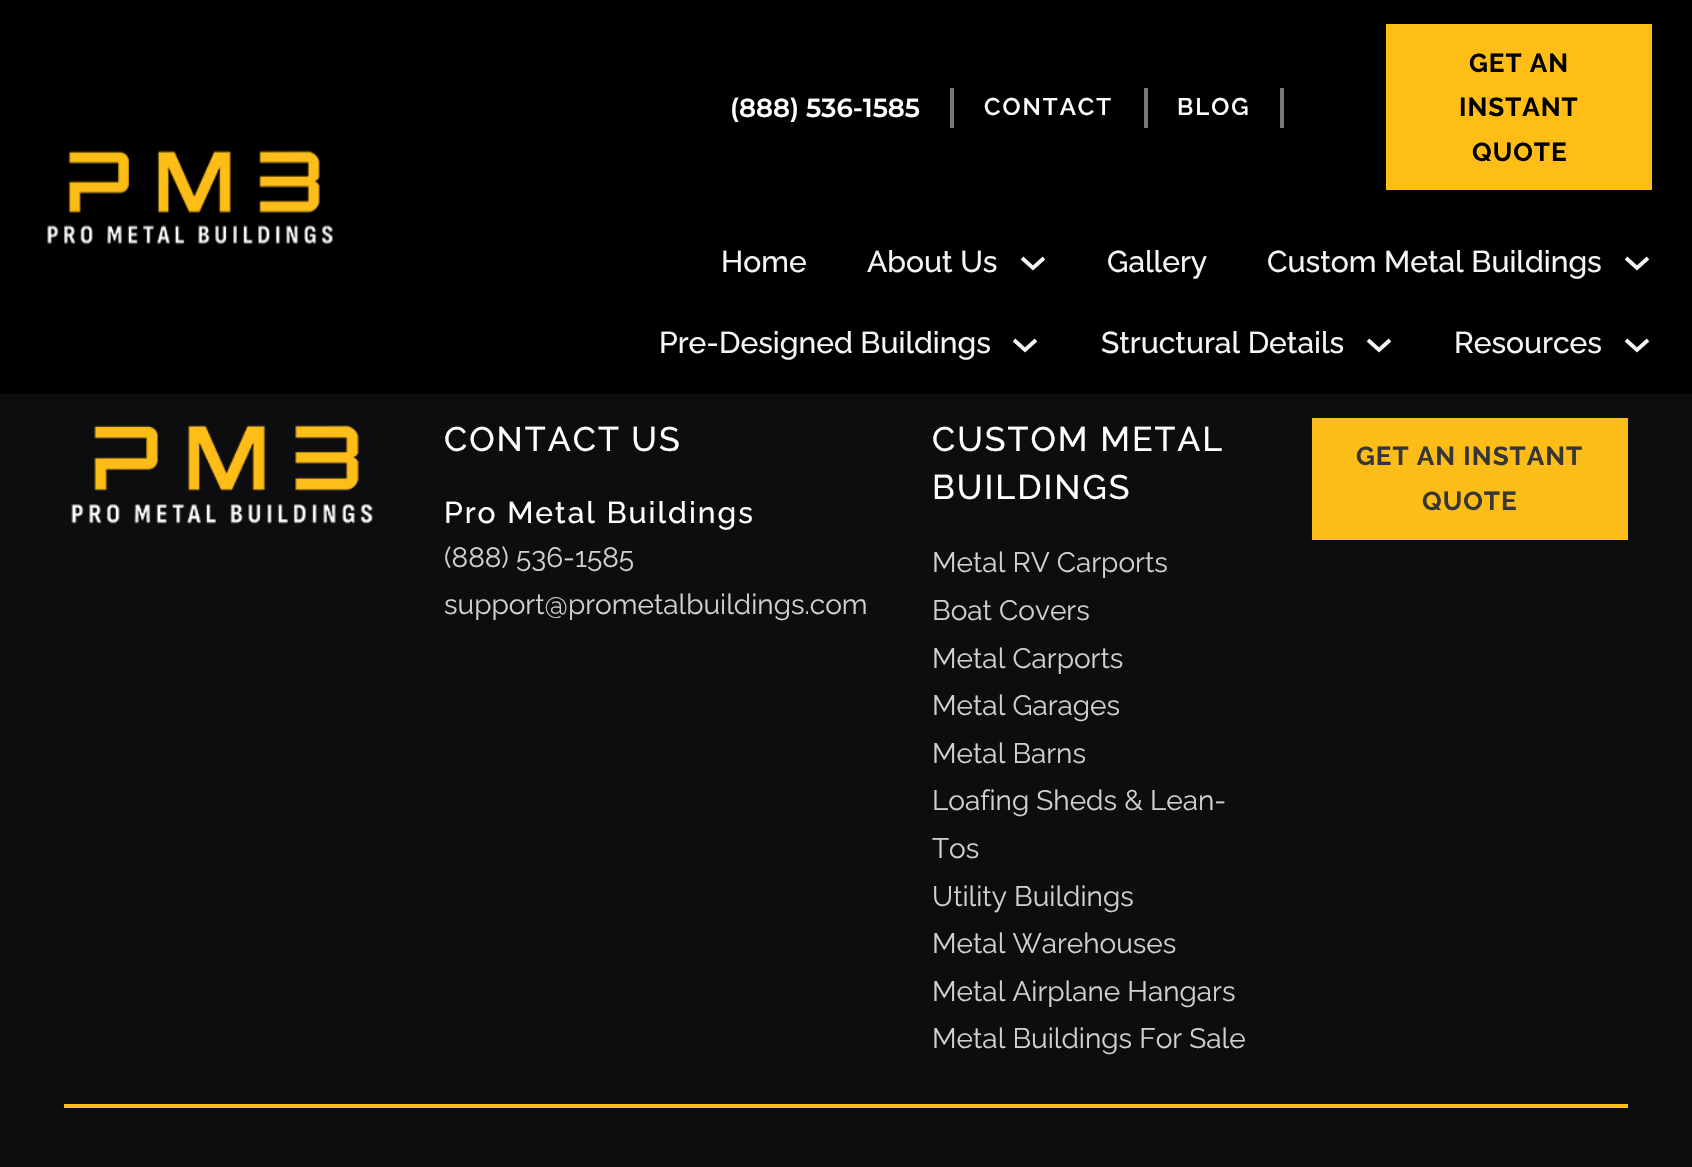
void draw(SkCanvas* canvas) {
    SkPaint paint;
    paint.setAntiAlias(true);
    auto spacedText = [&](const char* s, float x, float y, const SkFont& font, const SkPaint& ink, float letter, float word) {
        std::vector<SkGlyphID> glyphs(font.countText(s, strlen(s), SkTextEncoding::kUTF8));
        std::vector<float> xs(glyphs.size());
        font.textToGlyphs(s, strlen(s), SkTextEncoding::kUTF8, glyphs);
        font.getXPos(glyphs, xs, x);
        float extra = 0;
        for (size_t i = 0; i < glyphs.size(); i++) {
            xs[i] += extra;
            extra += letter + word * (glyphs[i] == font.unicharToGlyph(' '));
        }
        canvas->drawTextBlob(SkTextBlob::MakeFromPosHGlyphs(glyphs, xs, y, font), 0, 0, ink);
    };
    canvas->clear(0xFF0D0D10);
    paint.setColor(0xFF000000);
    canvas->drawRect(SkRect::MakeXYWH(0, 0, 1692, 394), paint);
    canvas->drawImageRect(SkImages::DeferredFromEncodedData(SkData::MakeFromFileName("img1.png")), SkRect::MakeXYWH(47, 150, 286, 95), SkSamplingOptions());
    SkFont font1(fontMgr->matchFamilyStyle("Montserrat", SkFontStyle(600, SkFontStyle::kNormal_Width, SkFontStyle::kUpright_Slant)), 26);
    font1.setSubpixel(true);
    paint.setColor(0xFFFFFFFF);
    canvas->drawString("(888) 536-1585", 730, 117, font1, paint);
    paint.setColor(0xFF787878);
    canvas->drawRect(SkRect::MakeXYWH(950, 88, 4, 40), paint);
    SkFont font2(fontMgr->matchFamilyStyle("Raleway", SkFontStyle(600, SkFontStyle::kNormal_Width, SkFontStyle::kUpright_Slant)), 24);
    font2.setSubpixel(true);
    paint.setColor(0xFFFFFFFF);
    spacedText("CONTACT", 984, 115, font2, paint, 2, 0);
    paint.setColor(0xFF787878);
    canvas->drawRect(SkRect::MakeXYWH(1144, 88, 4, 40), paint);
    paint.setColor(0xFFFFFFFF);
    spacedText("BLOG", 1177, 115, font2, paint, 2, 0);
    paint.setColor(0xFF787878);
    canvas->drawRect(SkRect::MakeXYWH(1280, 88, 4, 40), paint);
    paint.setColor(0xFFFFBD17);
    canvas->drawRect(SkRect::MakeXYWH(1386, 24, 266, 166), paint);
    SkFont font3(fontMgr->matchFamilyStyle("Raleway", SkFontStyle::Bold()), 26);
    font3.setSubpixel(true);
    paint.setColor(0xFF000000);
    spacedText("GET AN", 1469, 72, font3, paint, 1, 0);
    spacedText("INSTANT", 1459, 116, font3, paint, 1, 0);
    spacedText("QUOTE", 1472, 161, font3, paint, 1, 0);
    SkFont font4(fontMgr->matchFamilyStyle("Raleway", SkFontStyle(500, SkFontStyle::kNormal_Width, SkFontStyle::kUpright_Slant)), 30);
    font4.setSubpixel(true);
    paint.setColor(0xFFF5F5F5);
    canvas->drawString("Home", 721, 272, font4, paint);
    canvas->drawString("About Us", 867, 272, font4, paint);
    paint.setStyle(SkPaint::kStroke_Style);
    paint.setStrokeWidth(3.8f);
    canvas->drawPath(SkPathBuilder().moveTo(1022, 258).lineTo(1033, 268).lineTo(1044, 258).detach(), paint);
    paint.setStyle(SkPaint::kFill_Style);
    canvas->drawString("Gallery", 1107, 272, font4, paint);
    canvas->drawString("Custom Metal Buildings", 1267, 272, font4, paint);
    paint.setStyle(SkPaint::kStroke_Style);
    canvas->drawPath(SkPathBuilder().moveTo(1626, 258).lineTo(1637, 268).lineTo(1648, 258).detach(), paint);
    paint.setStyle(SkPaint::kFill_Style);
    canvas->drawString("Pre-Designed Buildings", 659, 353, font4, paint);
    paint.setStyle(SkPaint::kStroke_Style);
    canvas->drawPath(SkPathBuilder().moveTo(1014, 340).lineTo(1025, 350).lineTo(1036, 340).detach(), paint);
    paint.setStyle(SkPaint::kFill_Style);
    canvas->drawString("Structural Details", 1101, 353, font4, paint);
    paint.setStyle(SkPaint::kStroke_Style);
    canvas->drawPath(SkPathBuilder().moveTo(1368, 340).lineTo(1379, 350).lineTo(1390, 340).detach(), paint);
    paint.setStyle(SkPaint::kFill_Style);
    canvas->drawString("Resources", 1454, 353, font4, paint);
    paint.setStyle(SkPaint::kStroke_Style);
    canvas->drawPath(SkPathBuilder().moveTo(1626, 340).lineTo(1637, 350).lineTo(1648, 340).detach(), paint);
    canvas->drawImageRect(SkImages::DeferredFromEncodedData(SkData::MakeFromFileName("img2.png")), SkRect::MakeXYWH(71, 425, 302, 99), SkSamplingOptions());
    SkFont font5(fontMgr->matchFamilyStyle("Raleway", SkFontStyle(500, SkFontStyle::kNormal_Width, SkFontStyle::kUpright_Slant)), 34);
    font5.setSubpixel(true);
    paint.setStyle(SkPaint::kFill_Style);
    paint.setColor(0xFFFFFFFF);
    spacedText("CONTACT US", 444, 451, font5, paint, 2, 0);
    spacedText("Pro Metal Buildings", 444, 523, font4, paint, 2, 0);
    SkFont font6(fontMgr->matchFamilyStyle("Raleway", SkFontStyle::Normal()), 28);
    font6.setSubpixel(true);
    paint.setColor(0xFFD0D0D0);
    canvas->drawString("(888) 536-1585", 444, 567, font6, paint);
    canvas->drawString("support@prometalbuildings.com", 444, 614, font6, paint);
    paint.setColor(0xFFFFFFFF);
    spacedText("CUSTOM METAL", 932, 451, font5, paint, 2, 0);
    spacedText("BUILDINGS", 932, 499, font5, paint, 2, 0);
    paint.setColor(0xFFD0D0D0);
    canvas->drawString("Metal RV Carports", 932, 572, font6, paint);
    canvas->drawString("Boat Covers", 932, 620, font6, paint);
    canvas->drawString("Metal Carports", 932, 668, font6, paint);
    canvas->drawString("Metal Garages", 932, 715, font6, paint);
    canvas->drawString("Metal Barns", 932, 763, font6, paint);
    canvas->drawString("Loafing Sheds & Lean-", 932, 810, font6, paint);
    canvas->drawString("Tos", 932, 858, font6, paint);
    canvas->drawString("Utility Buildings", 932, 906, font6, paint);
    canvas->drawString("Metal Warehouses", 932, 953, font6, paint);
    canvas->drawString("Metal Airplane Hangars", 932, 1001, font6, paint);
    canvas->drawString("Metal Buildings For Sale", 932, 1048, font6, paint);
    paint.setColor(0xFFFDBD19);
    canvas->drawRect(SkRect::MakeXYWH(1312, 418, 316, 122), paint);
    paint.setColor(0xFF363636);
    spacedText("GET AN INSTANT", 1356, 465, font3, paint, 1, 0);
    spacedText("QUOTE", 1422, 510, font3, paint, 1, 0);
    paint.setColor(0xFFFDBD19);
    canvas->drawRect(SkRect::MakeXYWH(64, 1104, 1564, 4), paint);
}
